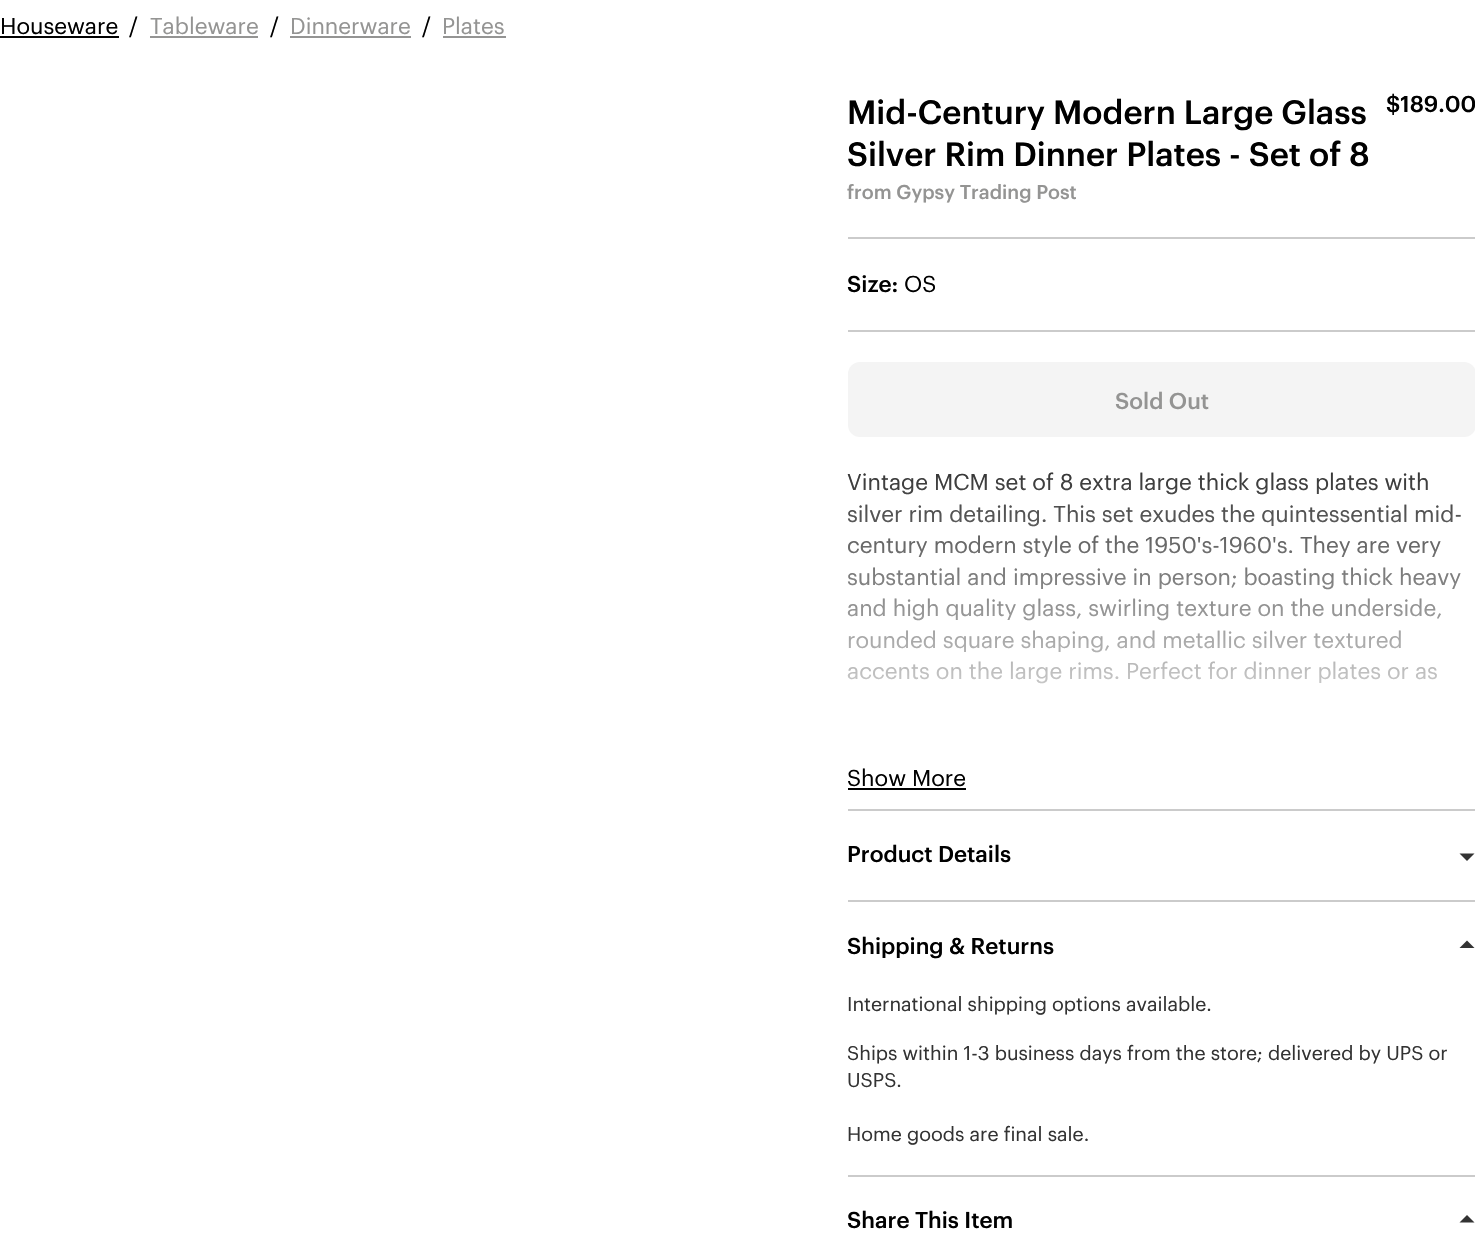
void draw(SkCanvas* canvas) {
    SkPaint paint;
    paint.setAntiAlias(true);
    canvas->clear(0xFFFFFFFF);
    SkFont font1(fontMgr->matchFamilyStyle("Graphik", SkFontStyle::Normal()), 22.5f);
    font1.setSubpixel(true);
    paint.setColor(0xFF000000);
    canvas->drawString("Houseware", 0, 34, font1, paint);
    canvas->drawRect(SkRect::MakeXYWH(0, 36, 119, 2), paint);
    canvas->drawString("/", 129, 34, font1, paint);
    paint.setColor(0xFF949493);
    canvas->drawString("Tableware", 150, 34, font1, paint);
    canvas->drawRect(SkRect::MakeXYWH(150, 36, 108, 2), paint);
    paint.setColor(0xFF000000);
    canvas->drawString("/", 270, 34, font1, paint);
    paint.setColor(0xFF949493);
    canvas->drawString("Dinnerware", 290, 34, font1, paint);
    canvas->drawRect(SkRect::MakeXYWH(290, 36, 121, 2), paint);
    paint.setColor(0xFF000000);
    canvas->drawString("/", 422, 34, font1, paint);
    paint.setColor(0xFF949493);
    canvas->drawString("Plates", 442, 34, font1, paint);
    canvas->drawRect(SkRect::MakeXYWH(443, 36, 63, 2), paint);
    SkFont font2(fontMgr->matchFamilyStyle("Graphik", SkFontStyle(500, SkFontStyle::kNormal_Width, SkFontStyle::kUpright_Slant)), 33);
    font2.setSubpixel(true);
    paint.setColor(0xFF000000);
    canvas->drawString("Mid-Century Modern Large Glass", 847, 124, font2, paint);
    canvas->drawString("Silver Rim Dinner Plates - Set of 8", 847, 166, font2, paint);
    SkFont font3(fontMgr->matchFamilyStyle("Graphik", SkFontStyle(500, SkFontStyle::kNormal_Width, SkFontStyle::kUpright_Slant)), 22.5f);
    font3.setSubpixel(true);
    canvas->drawString("$189.00", 1386, 112, font3, paint);
    SkFont font4(fontMgr->matchFamilyStyle("Graphik", SkFontStyle(500, SkFontStyle::kNormal_Width, SkFontStyle::kUpright_Slant)), 19.5f);
    font4.setSubpixel(true);
    paint.setColor(0xFF949493);
    canvas->drawString("from Gypsy Trading Post", 847, 199, font4, paint);
    paint.setColor(0xFFCBCBCB);
    canvas->drawRect(SkRect::MakeXYWH(848, 237, 627, 2), paint);
    canvas->drawRect(SkRect::MakeXYWH(848, 330, 627, 2), paint);
    paint.setColor(0xFF000000);
    canvas->drawString("Size:", 847, 292, font3, paint);
    canvas->drawString("OS", 904, 292, font1, paint);
    paint.setColor(0xFFF4F4F4);
    canvas->drawRoundRect(SkRect::MakeXYWH(848, 362, 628, 75), 12, 12, paint);
    paint.setColor(0xFF949493);
    canvas->drawString("Sold Out", 1115, 409, font3, paint);
    paint.setColor(0xFF333333);
    canvas->drawString("Vintage MCM set of 8 extra large thick glass plates with", 847, 490, font1, paint);
    canvas->drawString("silver rim detailing. This set exudes the quintessential mid-", 847, 522, font1, paint);
    canvas->drawString("century modern style of the 1950's-1960's. They are very", 847, 553, font1, paint);
    canvas->drawString("substantial and impressive in person; boasting thick heavy", 847, 585, font1, paint);
    canvas->drawString("and high quality glass, swirling texture on the underside,", 847, 616, font1, paint);
    canvas->drawString("rounded square shaping, and metallic silver textured", 847, 648, font1, paint);
    canvas->drawString("accents on the large rims. Perfect for dinner plates or as", 847, 679, font1, paint);
    {
        const SkColor colors[] = {0x00FFFFFF, 0xFFFFFFFF};
        const float stops[] = {0, 1};
        const SkPoint ends[] = {{1162, 467}, {1162, 767}};
        paint.setShader(SkGradientShader::MakeLinear(ends, colors, stops, 2, SkTileMode::kClamp));
        paint.setAlpha(255);
    }
    canvas->drawRect(SkRect::MakeXYWH(848, 473, 613, 211), paint);
    paint.setShader(nullptr);
    paint.setColor(0xFF000000);
    canvas->drawString("Show More", 847, 786, font1, paint);
    canvas->drawRect(SkRect::MakeXYWH(848, 788, 118, 2), paint);
    paint.setColor(0xFFCBCBCB);
    canvas->drawRect(SkRect::MakeXYWH(848, 809, 627, 2), paint);
    paint.setColor(0xFF000000);
    canvas->drawString("Product Details", 847, 862, font3, paint);
    paint.setColor(0xFF333333);
    canvas->drawPath(SkPathBuilder(SkPathFillType::kEvenOdd).moveTo(1474.5f, 853.5f).lineTo(1467, 861).lineTo(1459.5f, 853.5f).close().detach(), paint);
    paint.setColor(0xFFCBCBCB);
    canvas->drawRect(SkRect::MakeXYWH(848, 900, 627, 2), paint);
    paint.setColor(0xFF000000);
    canvas->drawString("Shipping & Returns", 847, 954, font3, paint);
    paint.setColor(0xFF333333);
    canvas->drawPath(SkPathBuilder(SkPathFillType::kEvenOdd).moveTo(1459.5f, 948).lineTo(1467, 940.5f).lineTo(1474.5f, 948).close().detach(), paint);
    SkFont font5(fontMgr->matchFamilyStyle("Graphik", SkFontStyle::Normal()), 19.5f);
    font5.setSubpixel(true);
    canvas->drawString("International shipping options available.", 847, 1011, font5, paint);
    canvas->drawString("Ships within 1-3 business days from the store; delivered by UPS or", 847, 1060, font5, paint);
    canvas->drawString("USPS.", 847, 1087, font5, paint);
    canvas->drawString("Home goods are final sale.", 847, 1141, font5, paint);
    paint.setColor(0xFFCBCBCB);
    canvas->drawRect(SkRect::MakeXYWH(848, 1175, 627, 2), paint);
    paint.setColor(0xFF000000);
    canvas->drawString("Share This Item", 847, 1228, font3, paint);
    paint.setColor(0xFF333333);
    canvas->drawPath(SkPathBuilder(SkPathFillType::kEvenOdd).moveTo(1459.5f, 1222.5f).lineTo(1467, 1215).lineTo(1474.5f, 1222.5f).close().detach(), paint);
}
